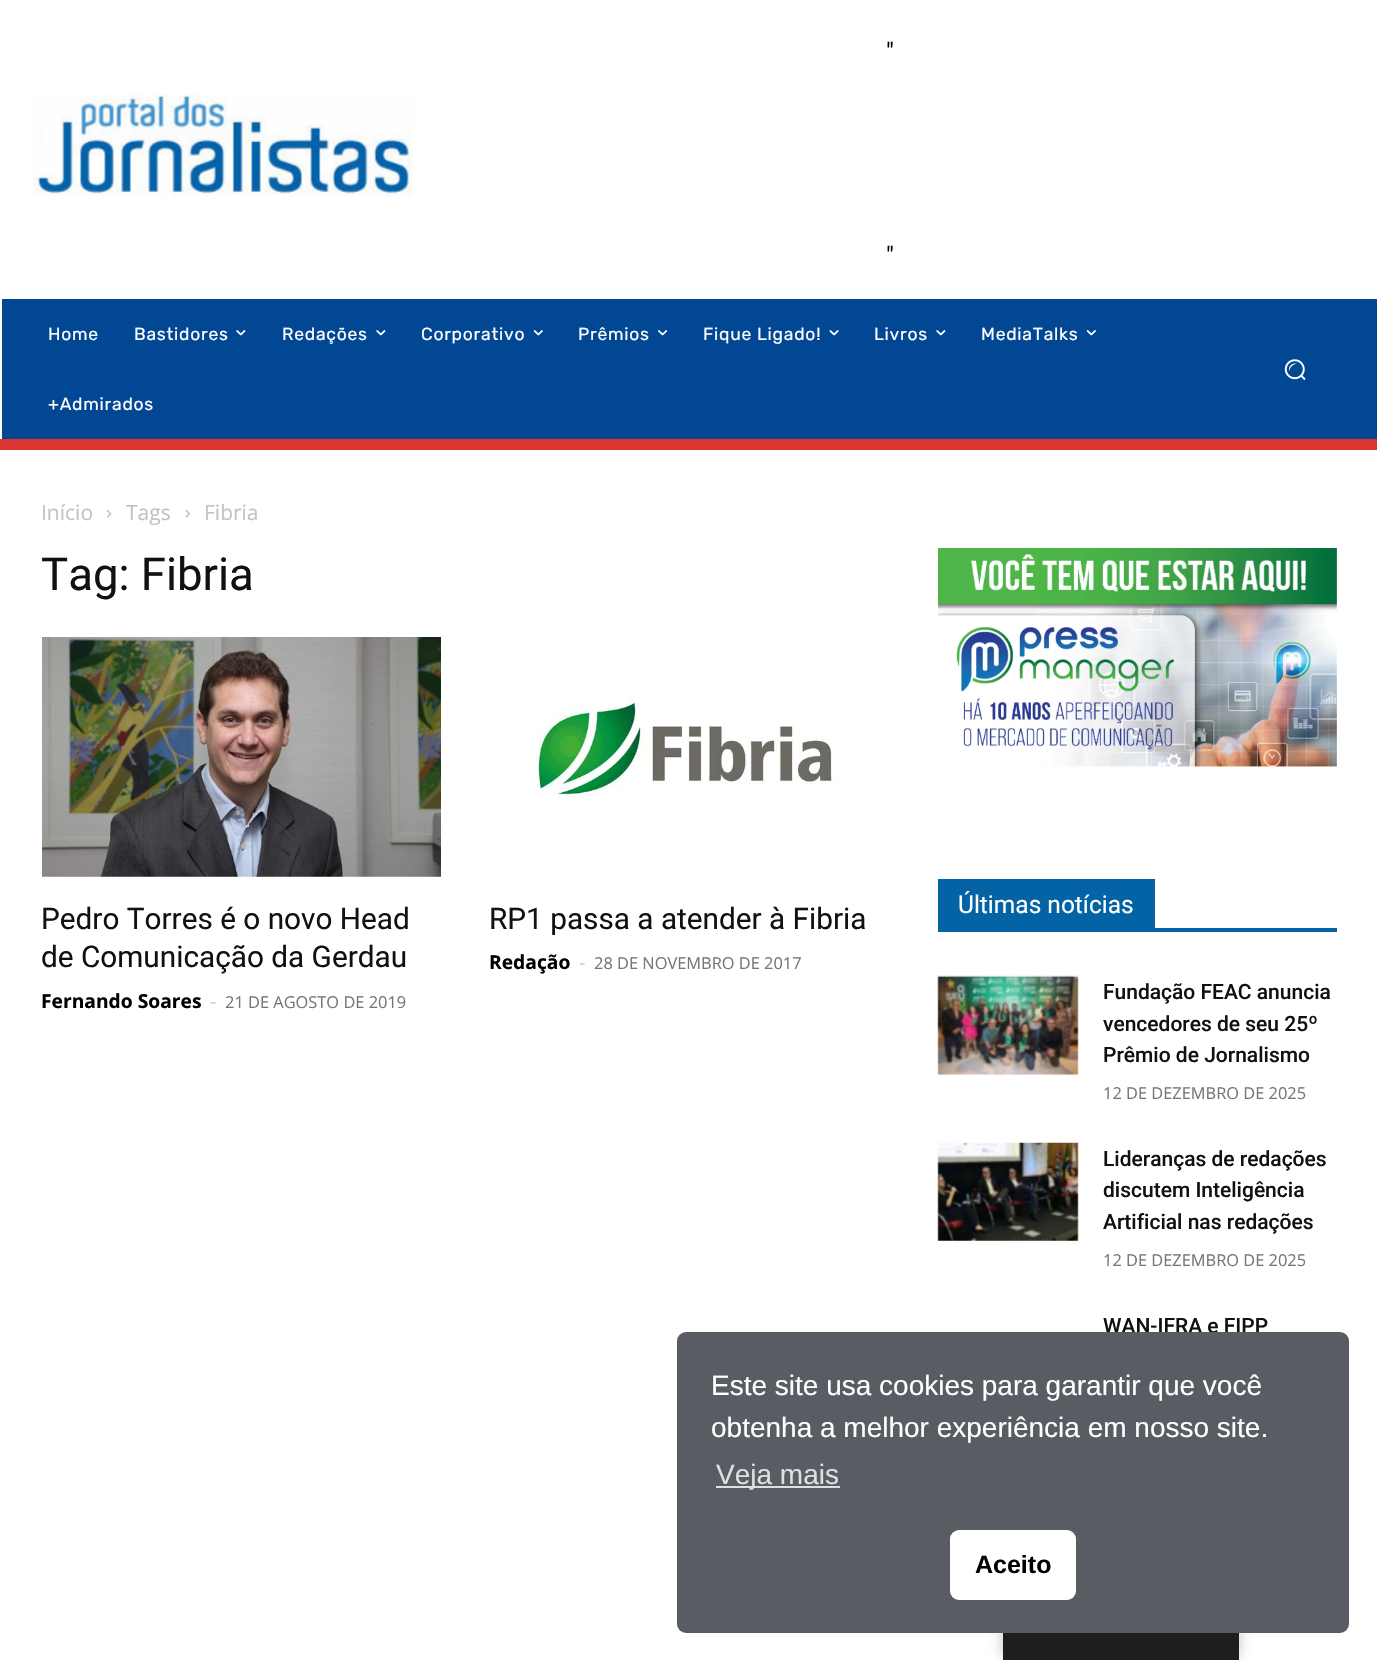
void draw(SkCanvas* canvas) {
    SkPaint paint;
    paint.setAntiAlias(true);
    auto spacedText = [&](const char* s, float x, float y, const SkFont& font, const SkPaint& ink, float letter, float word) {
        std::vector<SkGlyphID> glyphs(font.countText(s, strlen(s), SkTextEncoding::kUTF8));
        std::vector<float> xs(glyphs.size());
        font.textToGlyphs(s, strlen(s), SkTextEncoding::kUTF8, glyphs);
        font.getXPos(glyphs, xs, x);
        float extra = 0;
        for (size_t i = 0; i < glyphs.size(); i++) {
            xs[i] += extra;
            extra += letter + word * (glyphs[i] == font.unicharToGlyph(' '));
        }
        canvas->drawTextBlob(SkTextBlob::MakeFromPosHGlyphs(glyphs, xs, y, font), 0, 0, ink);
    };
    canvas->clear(0xFFFFFFFF);
    canvas->drawImageRect(SkImages::DeferredFromEncodedData(SkData::MakeFromFileName("img1.png")), SkRect::MakeXYWH(33, 94, 380, 103), SkSamplingOptions());
    SkFont font1(fontMgr->matchFamilyStyle("Roboto", SkFontStyle::Normal()), 24.5f);
    font1.setSubpixel(true);
    paint.setColor(0xFF000000);
    canvas->drawString("\"", 886, 60, font1, paint);
    canvas->drawString("\"", 886, 264, font1, paint);
    paint.setColor(0xFF014794);
    canvas->drawRect(SkRect::MakeXYWH(2, 299, 1375, 140), paint);
    SkFont font2(fontMgr->matchFamilyStyle("Rubik", SkFontStyle::Normal()), 17.5f);
    font2.setSubpixel(true);
    paint.setColor(0xFFFFFFFF);
    spacedText("Home", 48, 340, font2, paint, 0.75f, 0);
    spacedText("Bastidores", 134, 340, font2, paint, 0.75f, 0);
    canvas->drawImageRect(SkImages::DeferredFromEncodedData(SkData::MakeFromFileName("img2.png")), SkRect::MakeXYWH(236, 330, 10, 6), SkSamplingOptions());
    spacedText("Redações", 282, 340, font2, paint, 0.75f, 0);
    canvas->drawImageRect(SkImages::DeferredFromEncodedData(SkData::MakeFromFileName("img2.png")), SkRect::MakeXYWH(376, 330, 10, 6), SkSamplingOptions());
    spacedText("Corporativo", 421, 340, font2, paint, 0.75f, 0);
    canvas->drawImageRect(SkImages::DeferredFromEncodedData(SkData::MakeFromFileName("img3.png")), SkRect::MakeXYWH(533, 330, 10, 6), SkSamplingOptions());
    spacedText("Prêmios", 578, 340, font2, paint, 0.75f, 0);
    canvas->drawImageRect(SkImages::DeferredFromEncodedData(SkData::MakeFromFileName("img4.png")), SkRect::MakeXYWH(658, 330, 10, 6), SkSamplingOptions());
    spacedText("Fique Ligado!", 703, 340, font2, paint, 0.75f, 0);
    canvas->drawImageRect(SkImages::DeferredFromEncodedData(SkData::MakeFromFileName("img5.png")), SkRect::MakeXYWH(829, 330, 10, 6), SkSamplingOptions());
    spacedText("Livros", 874, 340, font2, paint, 0.75f, 0);
    canvas->drawImageRect(SkImages::DeferredFromEncodedData(SkData::MakeFromFileName("img2.png")), SkRect::MakeXYWH(936, 330, 10, 6), SkSamplingOptions());
    spacedText("MediaTalks", 981, 340, font2, paint, 0.75f, 0);
    canvas->drawImageRect(SkImages::DeferredFromEncodedData(SkData::MakeFromFileName("img3.png")), SkRect::MakeXYWH(1086, 330, 10, 6), SkSamplingOptions());
    spacedText("+Admirados", 48, 410, font2, paint, 0.75f, 0);
    canvas->drawImageRect(SkImages::DeferredFromEncodedData(SkData::MakeFromFileName("img6.png")), SkRect::MakeXYWH(1284, 359, 22, 22), SkSamplingOptions());
    paint.setColor(0xFFDD3333);
    canvas->drawRect(SkRect::MakeXYWH(0, 439, 1377, 11), paint);
    SkFont font3(fontMgr->matchFamilyStyle("Open Sans", SkFontStyle::Normal()), 21);
    font3.setSubpixel(true);
    paint.setColor(0xFFC3C3C3);
    canvas->drawString("Início", 41, 520, font3, paint);
    canvas->drawImageRect(SkImages::DeferredFromEncodedData(SkData::MakeFromFileName("img7.png")), SkRect::MakeXYWH(106, 509, 6, 9), SkSamplingOptions());
    canvas->drawString("Tags", 126, 520, font3, paint);
    canvas->drawImageRect(SkImages::DeferredFromEncodedData(SkData::MakeFromFileName("img8.png")), SkRect::MakeXYWH(185, 509, 6, 9), SkSamplingOptions());
    canvas->drawString("Fibria", 204, 520, font3, paint);
    SkFont font4(fontMgr->matchFamilyStyle("Roboto", SkFontStyle::Normal()), 45.5f);
    font4.setSubpixel(true);
    paint.setColor(0xFF111111);
    canvas->drawString("Tag: Fibria", 41, 590, font4, paint);
    canvas->drawImageRect(SkImages::DeferredFromEncodedData(SkData::MakeFromFileName("img9.png")), SkRect::MakeXYWH(42, 637, 399, 240), SkSamplingOptions());
    SkFont font5(fontMgr->matchFamilyStyle("Roboto", SkFontStyle::Normal()), 29.75f);
    font5.setSubpixel(true);
    canvas->drawString("Pedro Torres é o novo Head", 41, 929, font5, paint);
    canvas->drawString("de Comunicação da Gerdau", 41, 967, font5, paint);
    SkFont font6(fontMgr->matchFamilyStyle("Open Sans", SkFontStyle::Bold()), 19.25f);
    font6.setSubpixel(true);
    paint.setColor(0xFF000000);
    canvas->drawString("Fernando Soares", 41, 1008, font6, paint);
    SkFont font7(fontMgr->matchFamilyStyle("Open Sans", SkFontStyle::Normal()), 19.25f);
    font7.setSubpixel(true);
    paint.setColor(0xFFCCCCCC);
    canvas->drawString("-", 210, 1008, font7, paint);
    SkFont font8(fontMgr->matchFamilyStyle("Open Sans", SkFontStyle::Normal()), 16.4f);
    font8.setSubpixel(true);
    paint.setColor(0xFF767676);
    canvas->drawString("21 DE AGOSTO DE 2019", 225, 1008, font8, paint);
    canvas->drawImageRect(SkImages::DeferredFromEncodedData(SkData::MakeFromFileName("img10.png")), SkRect::MakeXYWH(538, 697, 297, 104), SkSamplingOptions());
    paint.setColor(0xFF111111);
    canvas->drawString("RP1 passa a atender à Fibria", 489, 929, font5, paint);
    paint.setColor(0xFF000000);
    canvas->drawString("Redação", 489, 969, font6, paint);
    paint.setColor(0xFFCCCCCC);
    canvas->drawString("-", 579, 969, font7, paint);
    paint.setColor(0xFF767676);
    canvas->drawString("28 DE NOVEMBRO DE 2017", 594, 969, font8, paint);
    canvas->drawImageRect(SkImages::DeferredFromEncodedData(SkData::MakeFromFileName("img11.png")), SkRect::MakeXYWH(938, 548, 399, 219), SkSamplingOptions());
    paint.setColor(0xFF0363A4);
    canvas->drawRect(SkRect::MakeXYWH(938, 928, 399, 4), paint);
    canvas->drawRect(SkRect::MakeXYWH(938, 879, 217, 49), paint);
    paint.setColor(0xFFFFFFFF);
    canvas->drawString("Últimas notícias", 958, 913, font1, paint);
    canvas->drawImageRect(SkImages::DeferredFromEncodedData(SkData::MakeFromFileName("img12.png")), SkRect::MakeXYWH(937, 975, 142, 100), SkSamplingOptions());
    SkFont font9(fontMgr->matchFamilyStyle("Roboto", SkFontStyle(500, SkFontStyle::kNormal_Width, SkFontStyle::kUpright_Slant)), 21);
    font9.setSubpixel(true);
    paint.setColor(0xFF111111);
    canvas->drawString("Fundação FEAC anuncia", 1103, 999, font9, paint);
    canvas->drawString("vencedores de seu 25º", 1103, 1031, font9, paint);
    canvas->drawString("Prêmio de Jornalismo", 1103, 1062, font9, paint);
    paint.setColor(0xFF767676);
    canvas->drawString("12 DE DEZEMBRO DE 2025", 1103, 1099, font8, paint);
    canvas->drawImageRect(SkImages::DeferredFromEncodedData(SkData::MakeFromFileName("img13.png")), SkRect::MakeXYWH(937, 1142, 142, 99), SkSamplingOptions());
    paint.setColor(0xFF111111);
    canvas->drawString("Lideranças de redações", 1103, 1166, font9, paint);
    canvas->drawString("discutem Inteligência", 1103, 1197, font9, paint);
    canvas->drawString("Artificial nas redações", 1103, 1229, font9, paint);
    paint.setColor(0xFF767676);
    canvas->drawString("12 DE DEZEMBRO DE 2025", 1103, 1266, font8, paint);
    paint.setColor(0xFF111111);
    canvas->drawString("WAN-IFRA e FIPP", 1103, 1333, font9, paint);
    paint.setColor(0x40000000);
    paint.setMaskFilter(SkMaskFilter::MakeBlur(kNormal_SkBlurStyle, 7));
    canvas->drawRoundRect(SkRect::MakeXYWH(1003, 1559, 236, 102), 14, 14, paint);
    paint.setMaskFilter(nullptr);
    paint.setColor(0xFF595D63);
    canvas->drawRoundRect(SkRect::MakeXYWH(677, 1332, 672, 301), 9, 9, paint);
    SkFont font10(fontMgr->matchFamilyStyle("Liberation Sans", SkFontStyle::Normal()), 28);
    font10.setSubpixel(true);
    paint.setColor(0xFFFFFFFF);
    canvas->drawString("Este site usa cookies para garantir que você", 711, 1395, font10, paint);
    canvas->drawString("obtenha a melhor experiência em nosso site.", 711, 1437, font10, paint);
    paint.setColor(0xFFDEDFE0);
    canvas->drawRect(SkRect::MakeXYWH(716, 1486, 124, 2), paint);
    canvas->drawString("Veja mais", 716, 1484, font10, paint);
    paint.setColor(0xFFFFFFFF);
    canvas->drawRoundRect(SkRect::MakeXYWH(950, 1530, 126, 70), 9, 9, paint);
    SkFont font11(fontMgr->matchFamilyStyle("Liberation Sans", SkFontStyle::Bold()), 25);
    font11.setSubpixel(true);
    paint.setColor(0xFF000000);
    canvas->drawString("Aceito", 975, 1573, font11, paint);
    paint.setColor(0xFF1E1E1E);
    canvas->drawRect(SkRect::MakeXYWH(1003, 1633, 236, 27), paint);
}
